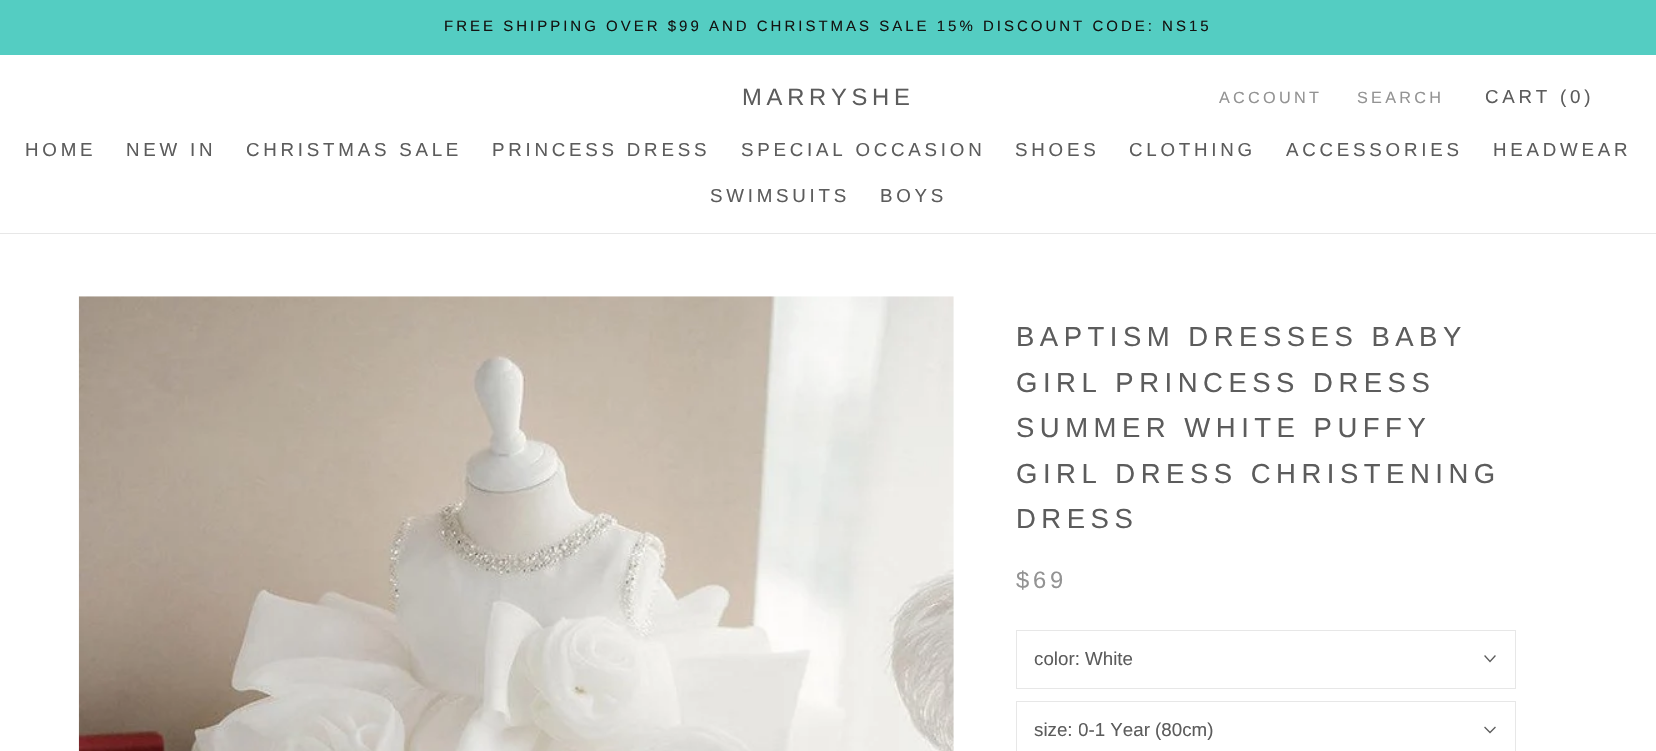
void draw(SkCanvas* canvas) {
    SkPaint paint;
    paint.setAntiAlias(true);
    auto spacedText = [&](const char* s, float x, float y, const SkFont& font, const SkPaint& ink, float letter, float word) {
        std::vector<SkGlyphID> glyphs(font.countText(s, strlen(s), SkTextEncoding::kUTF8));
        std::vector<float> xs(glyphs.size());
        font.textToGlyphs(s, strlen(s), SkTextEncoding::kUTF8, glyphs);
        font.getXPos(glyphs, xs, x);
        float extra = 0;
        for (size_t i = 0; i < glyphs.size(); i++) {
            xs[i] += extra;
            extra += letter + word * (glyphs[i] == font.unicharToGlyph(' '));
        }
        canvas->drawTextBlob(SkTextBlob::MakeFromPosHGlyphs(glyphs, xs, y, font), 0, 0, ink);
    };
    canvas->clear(0xFFFFFFFF);
    paint.setColor(0xFF54CDC2);
    canvas->drawRect(SkRect::MakeXYWH(0, 0, 1656, 55), paint);
    SkFont font1(fontMgr->matchFamilyStyle("Liberation Sans", SkFontStyle::Normal()), 15);
    font1.setSubpixel(true);
    paint.setColor(0xFF131311);
    spacedText("FREE SHIPPING OVER $99 AND CHRISTMAS SALE 15% DISCOUNT CODE: NS15", 444, 31, font1, paint, 3, 0);
    paint.setColor(0xFFE7E7E7);
    canvas->drawRect(SkRect::MakeXYWH(0, 233, 1656, 1), paint);
    SkFont font2(fontMgr->matchFamilyStyle("Liberation Sans", SkFontStyle::Normal()), 23.75f);
    font2.setSubpixel(true);
    paint.setColor(0xFF5C5C5C);
    spacedText("MARRYSHE", 742, 105, font2, paint, 4.75f, 0);
    SkFont font3(fontMgr->matchFamilyStyle("Liberation Sans", SkFontStyle::Normal()), 16.25f);
    font3.setSubpixel(true);
    paint.setColor(0xFF939393);
    spacedText("ACCOUNT", 1219, 103, font3, paint, 3.25f, 0);
    spacedText("SEARCH", 1357, 103, font3, paint, 3.25f, 0);
    SkFont font4(fontMgr->matchFamilyStyle("Liberation Sans", SkFontStyle::Normal()), 18.75f);
    font4.setSubpixel(true);
    paint.setColor(0xFF5C5C5C);
    spacedText("CART (0)", 1485, 103, font4, paint, 3.75f, 0);
    spacedText("HOME", 25, 156, font4, paint, 3.75f, 0);
    spacedText("NEW IN", 126, 156, font4, paint, 3.75f, 0);
    spacedText("CHRISTMAS SALE", 246, 156, font4, paint, 3.75f, 0);
    spacedText("PRINCESS DRESS", 492, 156, font4, paint, 3.75f, 0);
    spacedText("SPECIAL OCCASION", 741, 156, font4, paint, 3.75f, 0);
    spacedText("SHOES", 1015, 156, font4, paint, 3.75f, 0);
    spacedText("CLOTHING", 1129, 156, font4, paint, 3.75f, 0);
    spacedText("ACCESSORIES", 1286, 156, font4, paint, 3.75f, 0);
    spacedText("HEADWEAR", 1493, 156, font4, paint, 3.75f, 0);
    spacedText("SWIMSUITS", 710, 202, font4, paint, 3.75f, 0);
    spacedText("BOYS", 880, 202, font4, paint, 3.75f, 0);
    canvas->drawImageRect(SkImages::DeferredFromEncodedData(SkData::MakeFromFileName("img1.png")), SkRect::MakeXYWH(78, 296, 876, 455), SkSamplingOptions());
    SkFont font5(fontMgr->matchFamilyStyle("Liberation Sans", SkFontStyle::Normal()), 27.5f);
    font5.setSubpixel(true);
    spacedText("BAPTISM DRESSES BABY", 1016, 346, font5, paint, 5.5f, 0);
    spacedText("GIRL PRINCESS DRESS", 1016, 392, font5, paint, 5.5f, 0);
    spacedText("SUMMER WHITE PUFFY", 1016, 437, font5, paint, 5.5f, 0);
    spacedText("GIRL DRESS CHRISTENING", 1016, 483, font5, paint, 5.5f, 0);
    spacedText("DRESS", 1016, 528, font5, paint, 5.5f, 0);
    paint.setColor(0xFF939393);
    spacedText("$69", 1016, 588, font2, paint, 3.75f, 0);
    paint.setStyle(SkPaint::kStroke_Style);
    paint.setStrokeWidth(1);
    paint.setColor(0xFFE7E7E7);
    canvas->drawRect(SkRect::MakeXYWH(1016.5f, 630.5f, 499, 58), paint);
    paint.setStyle(SkPaint::kFill_Style);
    paint.setColor(0xFF5C5C5C);
    canvas->drawString("color: White", 1034, 665, font4, paint);
    paint.setStyle(SkPaint::kStroke_Style);
    paint.setStrokeWidth(1.3f);
    paint.setStrokeCap(SkPaint::kSquare_Cap);
    canvas->drawPath(SkPathBuilder().moveTo(1495, 656).lineTo(1490, 661.5f).lineTo(1485, 656).detach(), paint);
    paint.setStrokeWidth(1);
    paint.setStrokeCap(SkPaint::kButt_Cap);
    paint.setColor(0xFFE7E7E7);
    canvas->drawRect(SkRect::MakeXYWH(1016.5f, 701.5f, 499, 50), paint);
    paint.setStyle(SkPaint::kFill_Style);
    paint.setColor(0xFF5C5C5C);
    canvas->drawString("size:", 1034, 736, font4, paint);
    canvas->save();
    canvas->clipRect(SkRect::MakeXYWH(1079, 715, 135, 30));
    canvas->drawString("0-1 Year (80cm)", 1078, 736, font4, paint);
    canvas->restore();
    paint.setStyle(SkPaint::kStroke_Style);
    paint.setStrokeWidth(1.3f);
    paint.setStrokeCap(SkPaint::kSquare_Cap);
    canvas->drawPath(SkPathBuilder().moveTo(1495, 727.5f).lineTo(1490, 732.5f).lineTo(1485, 727.5f).detach(), paint);
}
